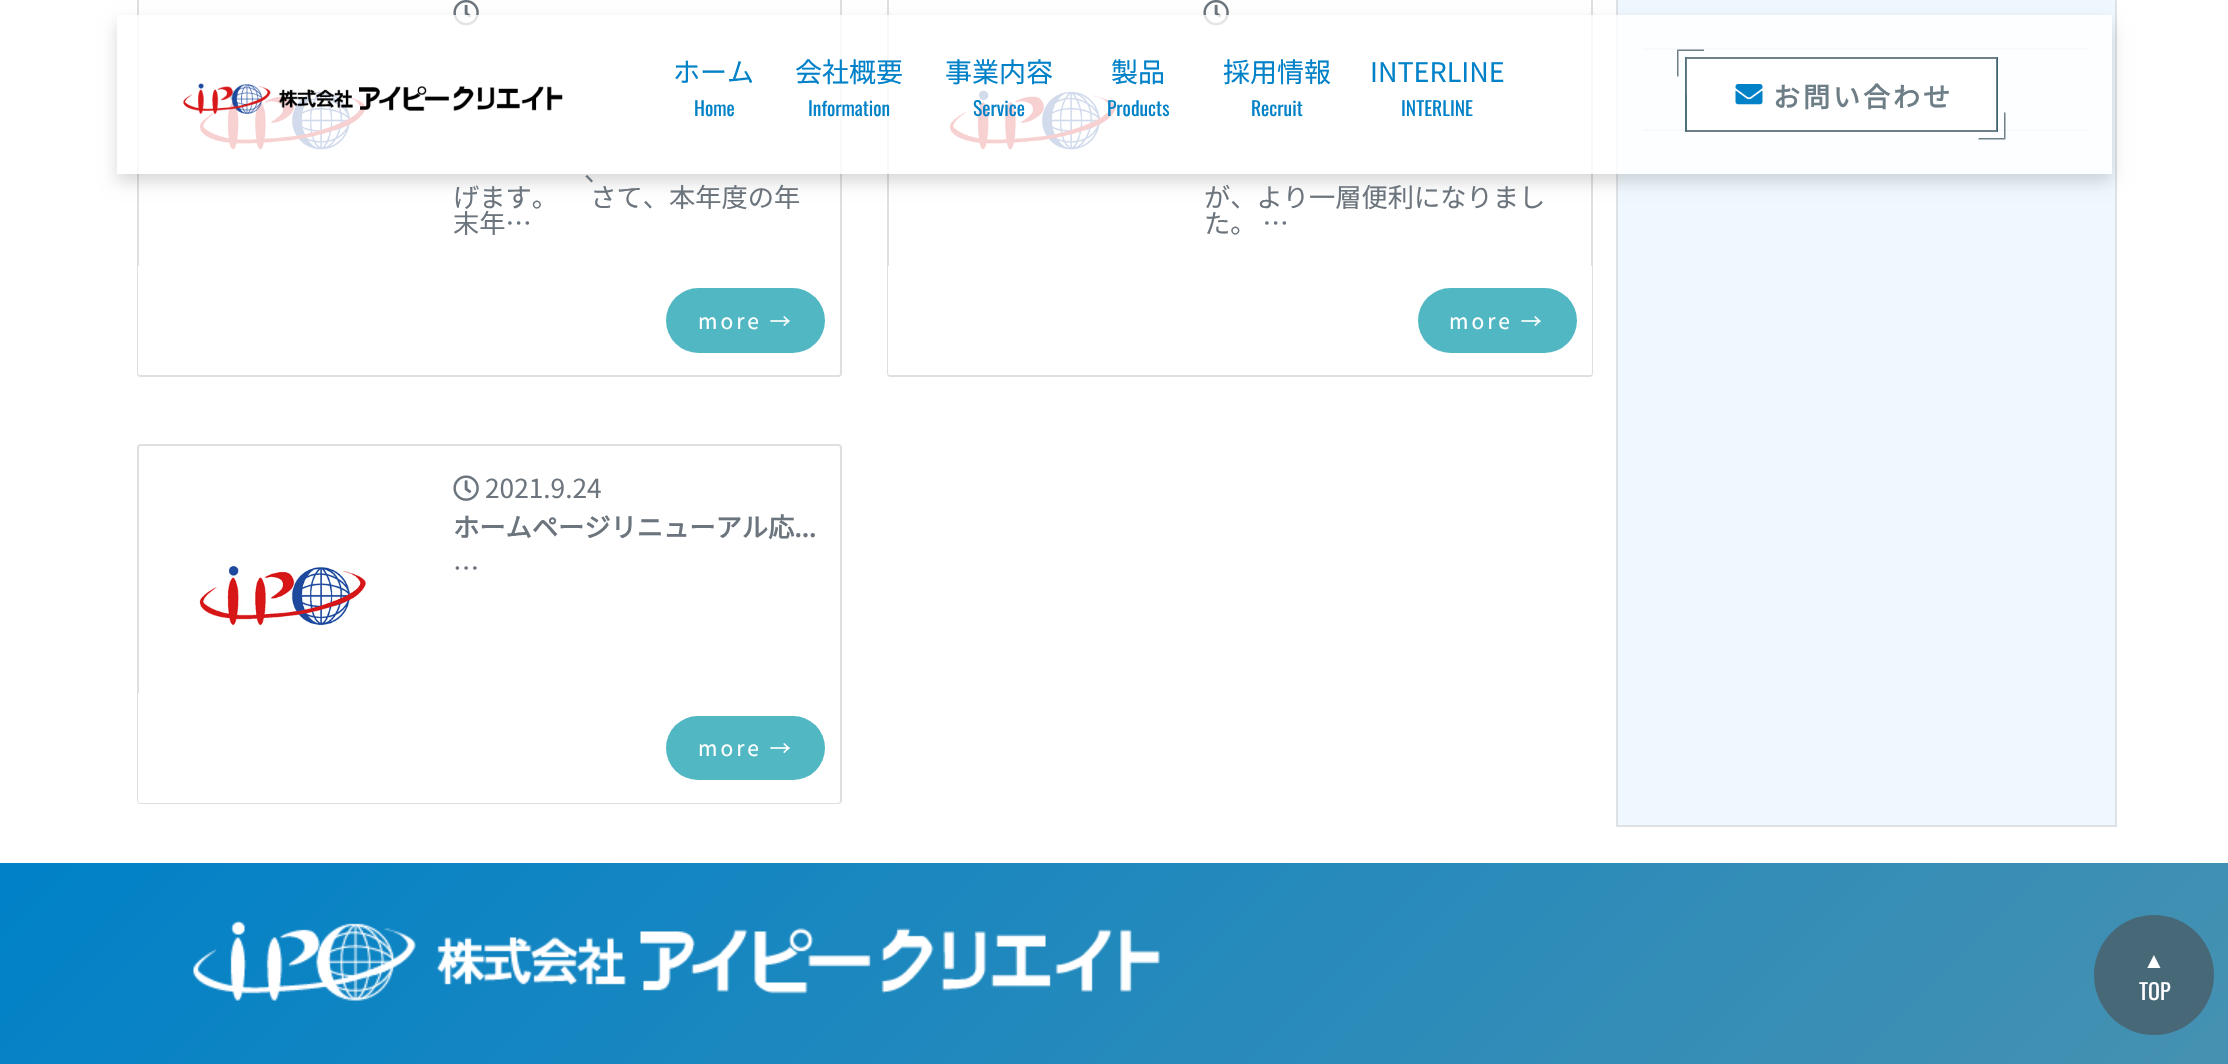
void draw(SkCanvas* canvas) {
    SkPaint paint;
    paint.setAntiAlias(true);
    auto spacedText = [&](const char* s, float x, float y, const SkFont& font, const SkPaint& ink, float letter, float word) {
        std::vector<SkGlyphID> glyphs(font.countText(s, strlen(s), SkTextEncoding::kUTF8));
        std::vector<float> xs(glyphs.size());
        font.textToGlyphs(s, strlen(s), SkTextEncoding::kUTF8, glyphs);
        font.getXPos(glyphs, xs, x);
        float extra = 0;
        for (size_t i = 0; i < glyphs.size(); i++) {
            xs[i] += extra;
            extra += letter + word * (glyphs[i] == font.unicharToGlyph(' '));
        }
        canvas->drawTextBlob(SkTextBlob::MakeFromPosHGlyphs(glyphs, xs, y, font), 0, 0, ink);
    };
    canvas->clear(0xFFFFFFFF);
    paint.setStyle(SkPaint::kStroke_Style);
    paint.setStrokeWidth(2);
    paint.setColor(0xFFDFDFDF);
    canvas->drawRoundRect(SkRect::MakeXYWH(138, -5, 703, 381), 3, 3, paint);
    canvas->drawImageRect(SkImages::DeferredFromEncodedData(SkData::MakeFromFileName("img3.png")), SkRect::MakeXYWH(199, 90, 167, 60), SkSamplingOptions());
    canvas->drawImageRect(SkImages::DeferredFromEncodedData(SkData::MakeFromFileName("img4.png")), SkRect::MakeXYWH(453, 0, 26, 26), SkSamplingOptions());
    canvas->drawRoundRect(SkRect::MakeXYWH(888, -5, 704, 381), 3, 3, paint);
    canvas->drawImageRect(SkImages::DeferredFromEncodedData(SkData::MakeFromFileName("img3.png")), SkRect::MakeXYWH(949, 90, 167, 60), SkSamplingOptions());
    canvas->drawImageRect(SkImages::DeferredFromEncodedData(SkData::MakeFromFileName("img4.png")), SkRect::MakeXYWH(1203, 0, 26, 26), SkSamplingOptions());
    paint.setStyle(SkPaint::kFill_Style);
    paint.setColor(0xFFF0F8FF);
    canvas->drawRect(SkRect::MakeXYWH(1617, -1, 499, 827), paint);
    paint.setStyle(SkPaint::kStroke_Style);
    paint.setColor(0xFFDEE2E6);
    canvas->drawRect(SkRect::MakeXYWH(1617, -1, 499, 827), paint);
    paint.setStyle(SkPaint::kFill_Style);
    canvas->drawRect(SkRect::MakeXYWH(1643, 48, 445, 2), paint);
    canvas->drawRect(SkRect::MakeXYWH(1643, 129, 445, 2), paint);
    canvas->save();
    canvas->clipPath(SkPathBuilder(SkPathFillType::kEvenOdd).moveTo(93, 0).lineTo(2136, 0).lineTo(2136, 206).lineTo(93, 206).close().moveTo(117, 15).lineTo(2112, 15).lineTo(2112, 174).lineTo(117, 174).close().detach(), true);
    paint.setColor(0x26000000);
    paint.setMaskFilter(SkMaskFilter::MakeBlur(kNormal_SkBlurStyle, 7.5f));
    canvas->drawRect(SkRect::MakeXYWH(117, 23, 1995, 159), paint);
    paint.setMaskFilter(nullptr);
    canvas->restore();
    paint.setColor(0xCCFFFFFF);
    canvas->drawRect(SkRect::MakeXYWH(137, 15, 1975, 159), paint);
    canvas->drawImageRect(SkImages::DeferredFromEncodedData(SkData::MakeFromFileName("img1.png")), SkRect::MakeXYWH(183, 83, 380, 31), SkSamplingOptions());
    SkFont font1(fontMgr->matchFamilyStyle("Noto Sans JP", SkFontStyle(100, SkFontStyle::kNormal_Width, SkFontStyle::kUpright_Slant)), 27);
    font1.setSubpixel(true);
    paint.setColor(0xFF0081C8);
    canvas->drawString("ホーム", 673, 82, font1, paint);
    SkFont font2(fontMgr->matchFamilyStyle("Oswald", SkFontStyle::Normal()), 19.5f);
    font2.setSubpixel(true);
    canvas->drawString("Home", 694, 116, font2, paint);
    canvas->drawString("会社概要", 795, 82, font1, paint);
    canvas->drawString("Information", 808, 116, font2, paint);
    canvas->drawString("事業内容", 945, 82, font1, paint);
    canvas->drawString("Service", 973, 116, font2, paint);
    canvas->drawString("製品", 1111, 82, font1, paint);
    canvas->drawString("Products", 1107, 116, font2, paint);
    canvas->drawString("採用情報", 1223, 82, font1, paint);
    canvas->drawString("Recruit", 1251, 116, font2, paint);
    canvas->drawString("INTERLINE", 1370, 82, font1, paint);
    canvas->drawString("INTERLINE", 1401, 116, font2, paint);
    {
        const SkColor colors[] = {0xFF0081C8, 0xFF51B7C2, 0x0051B7C2, 0x00FFFFFF, 0xFFFFFFFF};
        const float stops[] = {0, 0.5f, 0.5f, 0.5f, 0.5f};
        const SkPoint ends[] = {{1376, 95}, {1997, 94}};
        paint.setShader(SkGradientShader::MakeLinear(ends, colors, stops, 5, SkTileMode::kClamp));
        paint.setAlpha(255);
    }
    canvas->drawRect(SkRect::MakeXYWH(1685, 57, 312, 75), paint);
    {
        const SkColor colors[] = {0xFF0081C8, 0xFF51B7C2, 0x0051B7C2, 0x00FFFFFF, 0xFFFFFFFF};
        const float stops[] = {0, 0.5f, 0.5f, 0.5f, 0.5f};
        const SkPoint ends[] = {{1997, 95}, {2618, 94}};
        paint.setShader(SkGradientShader::MakeLinear(ends, colors, stops, 5, SkTileMode::kClamp));
        paint.setAlpha(255);
    }
    canvas->drawRect(SkRect::MakeXYWH(1997, 57, 1, 75), paint);
    paint.setStyle(SkPaint::kStroke_Style);
    paint.setShader(nullptr);
    paint.setColor(0xC9485C67);
    canvas->drawRect(SkRect::MakeXYWH(1686, 58, 311, 73), paint);
    paint.setStyle(SkPaint::kFill_Style);
    paint.setColor(0xFF6E7E87);
    canvas->drawPath(SkPathBuilder().moveTo(1677, 49.5f).lineTo(1704, 49.5f).lineTo(1704, 51).lineTo(1678.5f, 51).close().detach(), paint);
    paint.setColor(0xC9485C67);
    canvas->drawPath(SkPathBuilder().moveTo(1677, 76.5f).lineTo(1677, 49.5f).lineTo(1678.5f, 51).lineTo(1678.5f, 76.5f).close().detach(), paint);
    canvas->drawImageRect(SkImages::DeferredFromEncodedData(SkData::MakeFromFileName("img2.png")), SkRect::MakeXYWH(1735, 84, 28, 21), SkSamplingOptions());
    SkFont font3(fontMgr->matchFamilyStyle("Noto Sans JP", SkFontStyle::Bold()), 27);
    font3.setSubpixel(true);
    paint.setColor(0xFF6E7E87);
    spacedText("お問い合わせ", 1773, 107, font3, paint, 3, 0);
    paint.setColor(0xC9485C67);
    canvas->drawPath(SkPathBuilder().moveTo(2005.5f, 112.5f).lineTo(2005.5f, 139.5f).lineTo(2004, 138).lineTo(2004, 112.5f).close().detach(), paint);
    canvas->drawPath(SkPathBuilder().moveTo(2005.5f, 139.5f).lineTo(1978.5f, 139.5f).lineTo(1978.5f, 138).lineTo(2004, 138).close().detach(), paint);
    SkFont font4(fontMgr->matchFamilyStyle("Noto Sans JP", SkFontStyle(100, SkFontStyle::kNormal_Width, SkFontStyle::kUpright_Slant)), 26.25f);
    font4.setSubpixel(true);
    paint.setColor(0xFF6C757D);
    canvas->drawString("、", 584, 181, font4, paint);
    canvas->drawString("げます。 　さて、本年度の年", 453, 207, font4, paint);
    canvas->drawString("末年…", 453, 233, font4, paint);
    paint.setColor(0xFFFFFFFF);
    canvas->drawPath(SkPathBuilder().moveTo(138, 266).lineTo(840, 266).lineTo(840, 373).cubicTo(840, 374, 839, 375, 838, 375).lineTo(140, 375).cubicTo(139, 375, 138, 374, 138, 373).close().detach(), paint);
    paint.setColor(0xFF51B7C2);
    canvas->drawRoundRect(SkRect::MakeXYWH(666, 288, 159, 65), 32.5f, 32.5f, paint);
    SkFont font5(fontMgr->matchFamilyStyle("Noto Sans JP", SkFontStyle(100, SkFontStyle::kNormal_Width, SkFontStyle::kUpright_Slant)), 21);
    font5.setSubpixel(true);
    paint.setColor(0xFFFFFFFF);
    spacedText("more →", 698, 329, font5, paint, 3, 0);
    paint.setColor(0xFF6C757D);
    canvas->drawString("が、より一層便利になりまし", 1204, 207, font4, paint);
    canvas->drawString("た。 …", 1204, 233, font4, paint);
    paint.setColor(0xFFFFFFFF);
    canvas->drawPath(SkPathBuilder().moveTo(888, 266).lineTo(1592, 266).lineTo(1592, 373).cubicTo(1592, 374, 1591, 375, 1590, 375).lineTo(890, 375).cubicTo(889, 375, 888, 374, 888, 373).close().detach(), paint);
    paint.setColor(0xFF51B7C2);
    canvas->drawRoundRect(SkRect::MakeXYWH(1418, 288, 159, 65), 32.5f, 32.5f, paint);
    paint.setColor(0xFFFFFFFF);
    spacedText("more →", 1449, 329, font5, paint, 3, 0);
    paint.setStyle(SkPaint::kStroke_Style);
    paint.setColor(0xFFDFDFDF);
    canvas->drawRoundRect(SkRect::MakeXYWH(138, 445, 703, 358), 3, 3, paint);
    canvas->drawImageRect(SkImages::DeferredFromEncodedData(SkData::MakeFromFileName("img5.png")), SkRect::MakeXYWH(453, 475, 26, 26), SkSamplingOptions());
    paint.setStyle(SkPaint::kFill_Style);
    paint.setColor(0xFF6C757D);
    canvas->drawString("2021.9.24", 485, 498, font4, paint);
    SkFont font6(fontMgr->matchFamilyStyle("Noto Sans JP", SkFontStyle::Bold()), 26.25f);
    font6.setSubpixel(true);
    canvas->drawString("ホームページリニューアル応...", 453, 537, font6, paint);
    canvas->drawString("…", 453, 578, font4, paint);
    canvas->drawImageRect(SkImages::DeferredFromEncodedData(SkData::MakeFromFileName("img6.png")), SkRect::MakeXYWH(199, 566, 167, 60), SkSamplingOptions());
    paint.setColor(0xFFFFFFFF);
    canvas->drawPath(SkPathBuilder().moveTo(138, 693).lineTo(840, 693).lineTo(840, 801).cubicTo(840, 802, 839, 803, 838, 803).lineTo(140, 803).cubicTo(139, 803, 138, 802, 138, 801).close().detach(), paint);
    paint.setColor(0xFF51B7C2);
    canvas->drawRoundRect(SkRect::MakeXYWH(666, 716, 159, 64), 32, 32, paint);
    paint.setColor(0xFFFFFFFF);
    spacedText("more →", 698, 756, font5, paint, 3, 0);
    {
        const SkColor colors[] = {0xFF0081C8, 0xFF4E93AE};
        const float stops[] = {0, 1};
        const SkPoint ends[] = {{431, 432}, {1799, 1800}};
        paint.setShader(SkGradientShader::MakeLinear(ends, colors, stops, 2, SkTileMode::kClamp));
        paint.setAlpha(255);
    }
    canvas->drawRect(SkRect::MakeXYWH(0, 863, 2228, 201), paint);
    canvas->drawImageRect(SkImages::DeferredFromEncodedData(SkData::MakeFromFileName("img7.png")), SkRect::MakeXYWH(193, 920, 967, 81), SkSamplingOptions());
    paint.setShader(nullptr);
    paint.setColor(0xC9485C67);
    canvas->drawCircle(2154, 975, 60, paint);
    SkFont font7(fontMgr->matchFamilyStyle("Liberation Sans", SkFontStyle::Normal()), 22);
    font7.setSubpixel(true);
    paint.setColor(0xFFFFFFFF);
    canvas->drawString("▲", 2143, 968, font7, paint);
    SkFont font8(fontMgr->matchFamilyStyle("Oswald", SkFontStyle::Normal()), 22);
    font8.setSubpixel(true);
    canvas->drawString("TOP", 2139, 1000, font8, paint);
}
